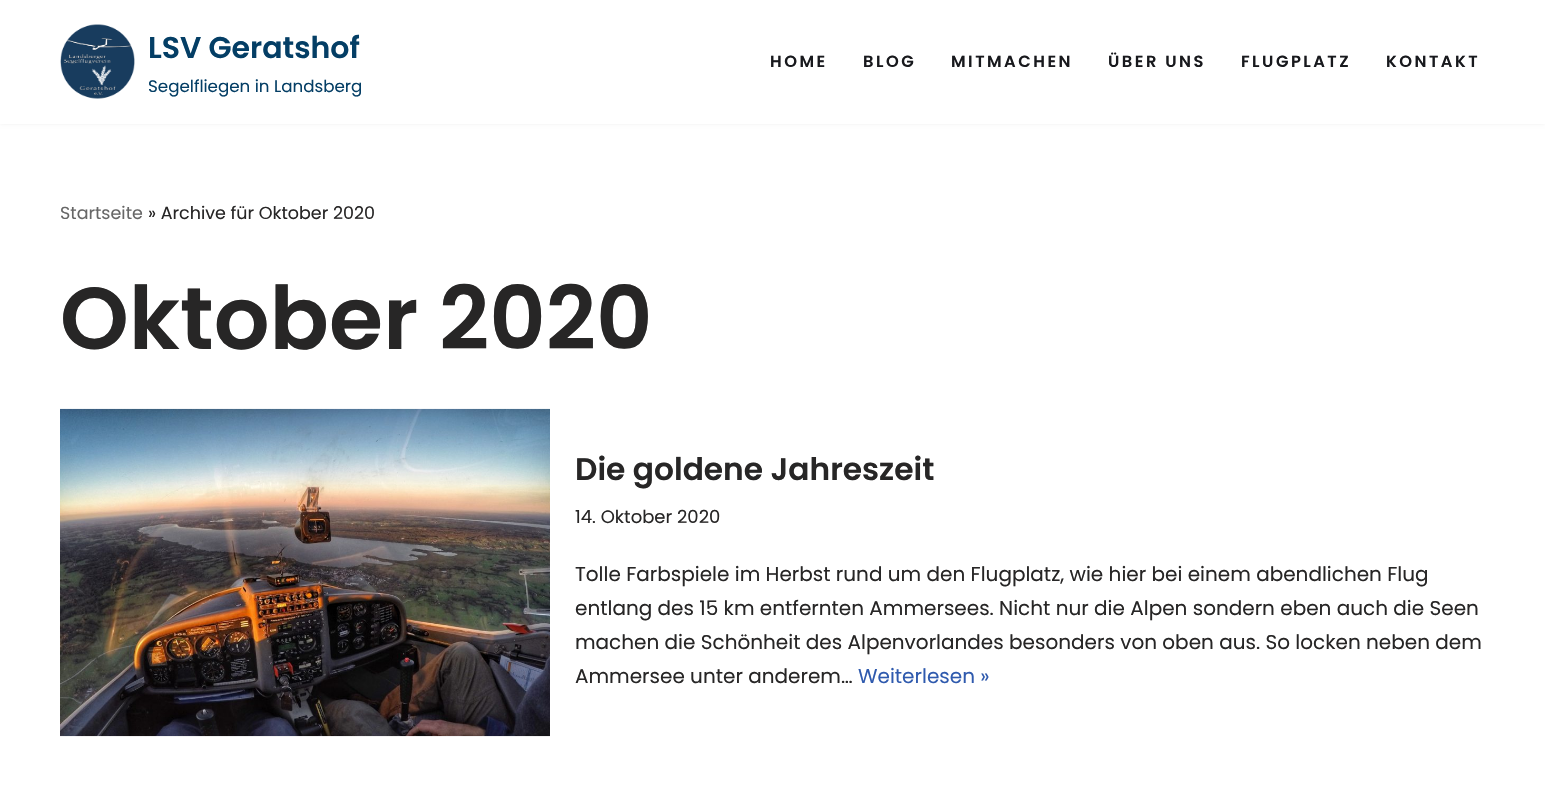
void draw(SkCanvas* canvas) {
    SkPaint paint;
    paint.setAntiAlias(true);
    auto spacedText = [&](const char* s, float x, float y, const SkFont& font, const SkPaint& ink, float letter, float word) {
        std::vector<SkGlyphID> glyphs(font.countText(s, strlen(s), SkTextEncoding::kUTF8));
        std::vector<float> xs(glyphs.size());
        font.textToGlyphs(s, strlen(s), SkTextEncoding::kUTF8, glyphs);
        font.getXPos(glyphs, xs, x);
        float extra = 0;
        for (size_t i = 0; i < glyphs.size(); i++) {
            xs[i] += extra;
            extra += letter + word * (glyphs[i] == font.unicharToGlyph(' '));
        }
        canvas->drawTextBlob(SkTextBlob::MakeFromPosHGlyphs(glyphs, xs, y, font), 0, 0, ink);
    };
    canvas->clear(0xFFFFFFFF);
    paint.setColor(0x1A000000);
    paint.setMaskFilter(SkMaskFilter::MakeBlur(kNormal_SkBlurStyle, 2));
    canvas->drawRect(SkRect::MakeXYWH(0, -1, 1545, 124), paint);
    paint.setMaskFilter(nullptr);
    paint.setColor(0xFFFFFFFF);
    canvas->drawRect(SkRect::MakeXYWH(0, 0, 1545, 124), paint);
    canvas->drawImageRect(SkImages::DeferredFromEncodedData(SkData::MakeFromFileName("img1.png")), SkRect::MakeXYWH(60, 24, 75, 75), SkSamplingOptions());
    SkFont font1(fontMgr->matchFamilyStyle("Poppins", SkFontStyle(600, SkFontStyle::kNormal_Width, SkFontStyle::kUpright_Slant)), 30);
    font1.setSubpixel(true);
    paint.setColor(0xFF043E65);
    canvas->drawString("LSV Geratshof", 148, 58, font1, paint);
    SkFont font2(fontMgr->matchFamilyStyle("Poppins", SkFontStyle::Normal()), 16.7f);
    font2.setSubpixel(true);
    canvas->drawString("Segelfliegen in Landsberg", 148, 92, font2, paint);
    SkFont font3(fontMgr->matchFamilyStyle("Poppins", SkFontStyle(600, SkFontStyle::kNormal_Width, SkFontStyle::kUpright_Slant)), 16.25f);
    font3.setSubpixel(true);
    paint.setColor(0xFF18191D);
    spacedText("HOME", 770, 67, font3, paint, 2.5f, 0);
    spacedText("BLOG", 863, 67, font3, paint, 2.5f, 0);
    spacedText("MITMACHEN", 951, 67, font3, paint, 2.5f, 0);
    spacedText("ÜBER UNS", 1108, 67, font3, paint, 2.5f, 0);
    spacedText("FLUGPLATZ", 1241, 67, font3, paint, 2.5f, 0);
    spacedText("KONTAKT", 1386, 67, font3, paint, 2.5f, 0);
    SkFont font4(fontMgr->matchFamilyStyle("Poppins", SkFontStyle::Normal()), 17.5f);
    font4.setSubpixel(true);
    paint.setColor(0xFF676767);
    canvas->drawString("Startseite", 60, 219, font4, paint);
    paint.setColor(0xFF272626);
    canvas->drawString("» Archive für Oktober 2020", 148, 219, font4, paint);
    SkFont font5(fontMgr->matchFamilyStyle("Poppins", SkFontStyle(600, SkFontStyle::kNormal_Width, SkFontStyle::kUpright_Slant)), 87.5f);
    font5.setSubpixel(true);
    canvas->drawString("Oktober 2020", 60, 349, font5, paint);
    canvas->drawImageRect(SkImages::DeferredFromEncodedData(SkData::MakeFromFileName("img2.png")), SkRect::MakeXYWH(60, 408, 490, 329), SkSamplingOptions());
    SkFont font6(fontMgr->matchFamilyStyle("Poppins", SkFontStyle(600, SkFontStyle::kNormal_Width, SkFontStyle::kUpright_Slant)), 31.25f);
    font6.setSubpixel(true);
    canvas->drawString("Die goldene Jahreszeit", 575, 480, font6, paint);
    SkFont font7(fontMgr->matchFamilyStyle("Poppins", SkFontStyle::Normal()), 18);
    font7.setSubpixel(true);
    canvas->drawString("14. Oktober 2020", 575, 523, font7, paint);
    SkFont font8(fontMgr->matchFamilyStyle("Poppins", SkFontStyle::Normal()), 20);
    font8.setSubpixel(true);
    canvas->drawString("Tolle Farbspiele im Herbst rund um den Flugplatz, wie hier bei einem abendlichen Flug", 575, 581, font8, paint);
    canvas->drawString("entlang des 15 km entfernten Ammersees. Nicht nur die Alpen sondern eben auch die Seen", 575, 615, font8, paint);
    canvas->drawString("machen die Schönheit des Alpenvorlandes besonders von oben aus. So locken neben dem", 575, 649, font8, paint);
    canvas->drawString("Ammersee unter anderem…", 575, 683, font8, paint);
    paint.setColor(0xFF2F5AAE);
    canvas->drawString("Weiterlesen »", 858, 683, font8, paint);
}
